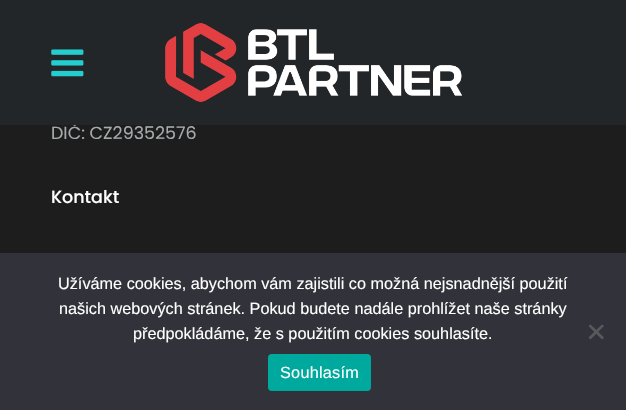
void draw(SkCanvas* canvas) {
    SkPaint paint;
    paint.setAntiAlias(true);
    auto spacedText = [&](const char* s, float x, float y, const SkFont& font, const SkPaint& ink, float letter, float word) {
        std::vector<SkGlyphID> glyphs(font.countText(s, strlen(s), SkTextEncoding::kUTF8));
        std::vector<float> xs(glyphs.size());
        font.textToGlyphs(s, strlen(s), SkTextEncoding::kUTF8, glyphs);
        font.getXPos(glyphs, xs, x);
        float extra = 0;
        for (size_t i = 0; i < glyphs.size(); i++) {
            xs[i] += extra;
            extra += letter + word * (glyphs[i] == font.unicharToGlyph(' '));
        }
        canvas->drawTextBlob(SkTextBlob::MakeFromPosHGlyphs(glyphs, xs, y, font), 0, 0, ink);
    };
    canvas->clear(0xFF1D1D1D);
    SkFont font1(fontMgr->matchFamilyStyle("Poppins", SkFontStyle::Normal()), 17.5f);
    font1.setSubpixel(true);
    paint.setColor(0xFFA8ABAD);
    canvas->drawString("DIČ: CZ29352576", 51, 139, font1, paint);
    paint.setColor(0xFF222629);
    canvas->drawRect(SkRect::MakeXYWH(0, 0, 626, 125), paint);
    canvas->drawImageRect(SkImages::DeferredFromEncodedData(SkData::MakeFromFileName("img1.png")), SkRect::MakeXYWH(51, 49, 33, 28), SkSamplingOptions());
    canvas->drawImageRect(SkImages::DeferredFromEncodedData(SkData::MakeFromFileName("img2.png")), SkRect::MakeXYWH(165, 23, 297, 79), SkSamplingOptions());
    SkFont font2(fontMgr->matchFamilyStyle("Poppins", SkFontStyle(500, SkFontStyle::kNormal_Width, SkFontStyle::kUpright_Slant)), 17.5f);
    font2.setSubpixel(true);
    paint.setColor(0xFFFFFFFF);
    canvas->drawString("Kontakt", 51, 203, font2, paint);
    paint.setColor(0xFF32323A);
    canvas->drawRect(SkRect::MakeXYWH(0, 253, 626, 157), paint);
    SkFont font3(fontMgr->matchFamilyStyle("Liberation Sans", SkFontStyle::Normal()), 16.25f);
    font3.setSubpixel(true);
    paint.setColor(0xFFFFFFFF);
    canvas->drawString("Užíváme cookies, abychom vám zajistili co možná nejsnadnější použití", 58, 289, font3, paint);
    canvas->drawString("našich webových stránek. Pokud budete nadále prohlížet naše stránky", 59, 314, font3, paint);
    canvas->drawString("předpokládáme, že s použitím cookies souhlasíte.", 133, 339, font3, paint);
    paint.setColor(0xFF59595D);
    canvas->drawPath(SkPathBuilder().moveTo(602, 324.5f).lineTo(604, 326).lineTo(590.5f, 339.5f).lineTo(588.5f, 337.5f).close().detach(), paint);
    canvas->drawPath(SkPathBuilder().moveTo(588.5f, 326).lineTo(590.5f, 324.5f).lineTo(604, 337.5f).lineTo(602, 339.5f).close().detach(), paint);
    paint.setColor(0xFF00A99D);
    canvas->drawRoundRect(SkRect::MakeXYWH(268, 354, 103, 37), 4, 4, paint);
    paint.setColor(0xFFFFFFFF);
    spacedText("Souhlasím", 280, 378, font3, paint, 0.25f, 0);
}
